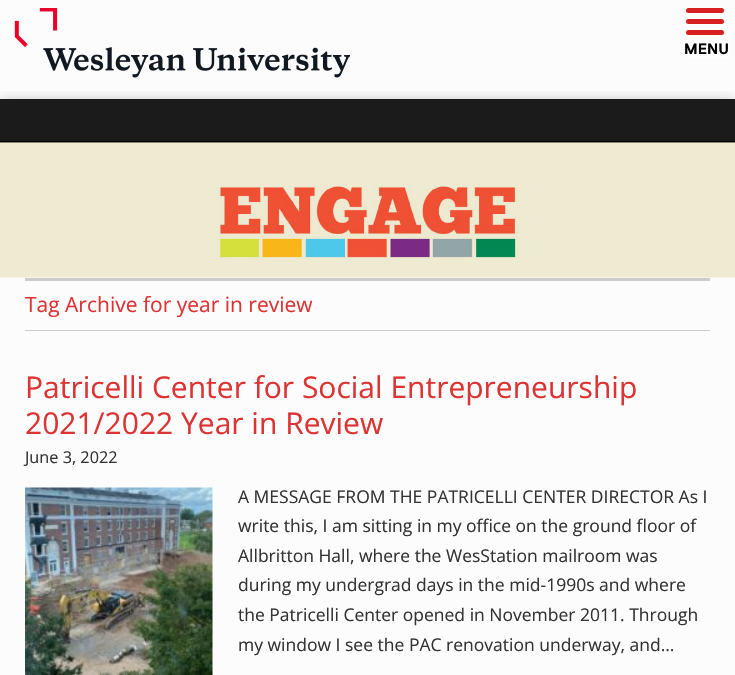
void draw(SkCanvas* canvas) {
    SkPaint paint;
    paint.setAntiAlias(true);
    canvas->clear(0xFFFCFCFC);
    canvas->drawImageRect(SkImages::DeferredFromEncodedData(SkData::MakeFromFileName("img1.png")), SkRect::MakeXYWH(14, 8, 336, 70), SkSamplingOptions());
    paint.setColor(0xFFD72121);
    canvas->drawRoundRect(SkRect::MakeXYWH(686, 8, 38, 5), 2.5f, 2.5f, paint);
    canvas->drawRoundRect(SkRect::MakeXYWH(686, 19, 38, 5), 2.5f, 2.5f, paint);
    canvas->drawRoundRect(SkRect::MakeXYWH(686, 30, 38, 5), 2.5f, 2.5f, paint);
    paint.setColor(0xFFFFFFFF);
    canvas->drawRoundRect(SkRect::MakeXYWH(685, 40, 44, 18), 4, 4, paint);
    SkFont font1(fontMgr->matchFamilyStyle("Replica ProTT", SkFontStyle::Bold()), 15);
    font1.setSubpixel(true);
    paint.setColor(0xFF000000);
    canvas->drawString("MENU", 684, 54, font1, paint);
    canvas->save();
    canvas->clipRect(SkRect::MakeXYWH(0, 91, 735, 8));
    paint.setColor(0x33000000);
    paint.setMaskFilter(SkMaskFilter::MakeBlur(kNormal_SkBlurStyle, 6));
    canvas->drawRect(SkRect::MakeXYWH(0, 99, 735, 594), paint);
    paint.setMaskFilter(nullptr);
    canvas->restore();
    paint.setColor(0xFF1B1B1B);
    canvas->drawRect(SkRect::MakeXYWH(0, 99, 735, 44), paint);
    paint.setColor(0xFF000000);
    canvas->drawRect(SkRect::MakeXYWH(0, 141, 735, 1), paint);
    canvas->drawImageRect(SkImages::DeferredFromEncodedData(SkData::MakeFromFileName("img2.png")), SkRect::MakeXYWH(0, 142, 735, 136), SkSamplingOptions());
    paint.setColor(0xFFCCCCCC);
    canvas->drawRect(SkRect::MakeXYWH(25, 278, 685, 3), paint);
    canvas->drawRect(SkRect::MakeXYWH(25, 330, 685, 1), paint);
    SkFont font2(fontMgr->matchFamilyStyle("Open Sans", SkFontStyle::Normal()), 21);
    font2.setSubpixel(true);
    paint.setColor(0xFFDD3333);
    canvas->drawString("Tag Archive for year in review", 25, 312, font2, paint);
    SkFont font3(fontMgr->matchFamilyStyle("Open Sans", SkFontStyle::Normal()), 30);
    font3.setSubpixel(true);
    canvas->drawString("Patricelli Center for Social Entrepreneurship", 25, 398, font3, paint);
    canvas->drawString("2021/2022 Year in Review", 25, 434, font3, paint);
    SkFont font4(fontMgr->matchFamilyStyle("Open Sans", SkFontStyle::Normal()), 16.25f);
    font4.setSubpixel(true);
    paint.setColor(0xFF333333);
    canvas->drawString("June 3, 2022", 25, 463, font4, paint);
    canvas->drawImageRect(SkImages::DeferredFromEncodedData(SkData::MakeFromFileName("img3.png")), SkRect::MakeXYWH(25, 487, 188, 188), SkSamplingOptions());
    SkFont font5(fontMgr->matchFamilyStyle("Open Sans", SkFontStyle::Normal()), 17.5f);
    font5.setSubpixel(true);
    canvas->drawString("A MESSAGE FROM THE PATRICELLI CENTER DIRECTOR As I", 238, 503, font5, paint);
    canvas->drawString("write this, I am sitting in my office on the ground floor of", 238, 532, font5, paint);
    canvas->drawString("Allbritton Hall, where the WesStation mailroom was", 238, 562, font5, paint);
    canvas->drawString("during my undergrad days in the mid-1990s and where", 238, 591, font5, paint);
    canvas->drawString("the Patricelli Center opened in November 2011. Through", 238, 621, font5, paint);
    canvas->drawString("my window I see the PAC renovation underway, and…", 238, 651, font5, paint);
}
